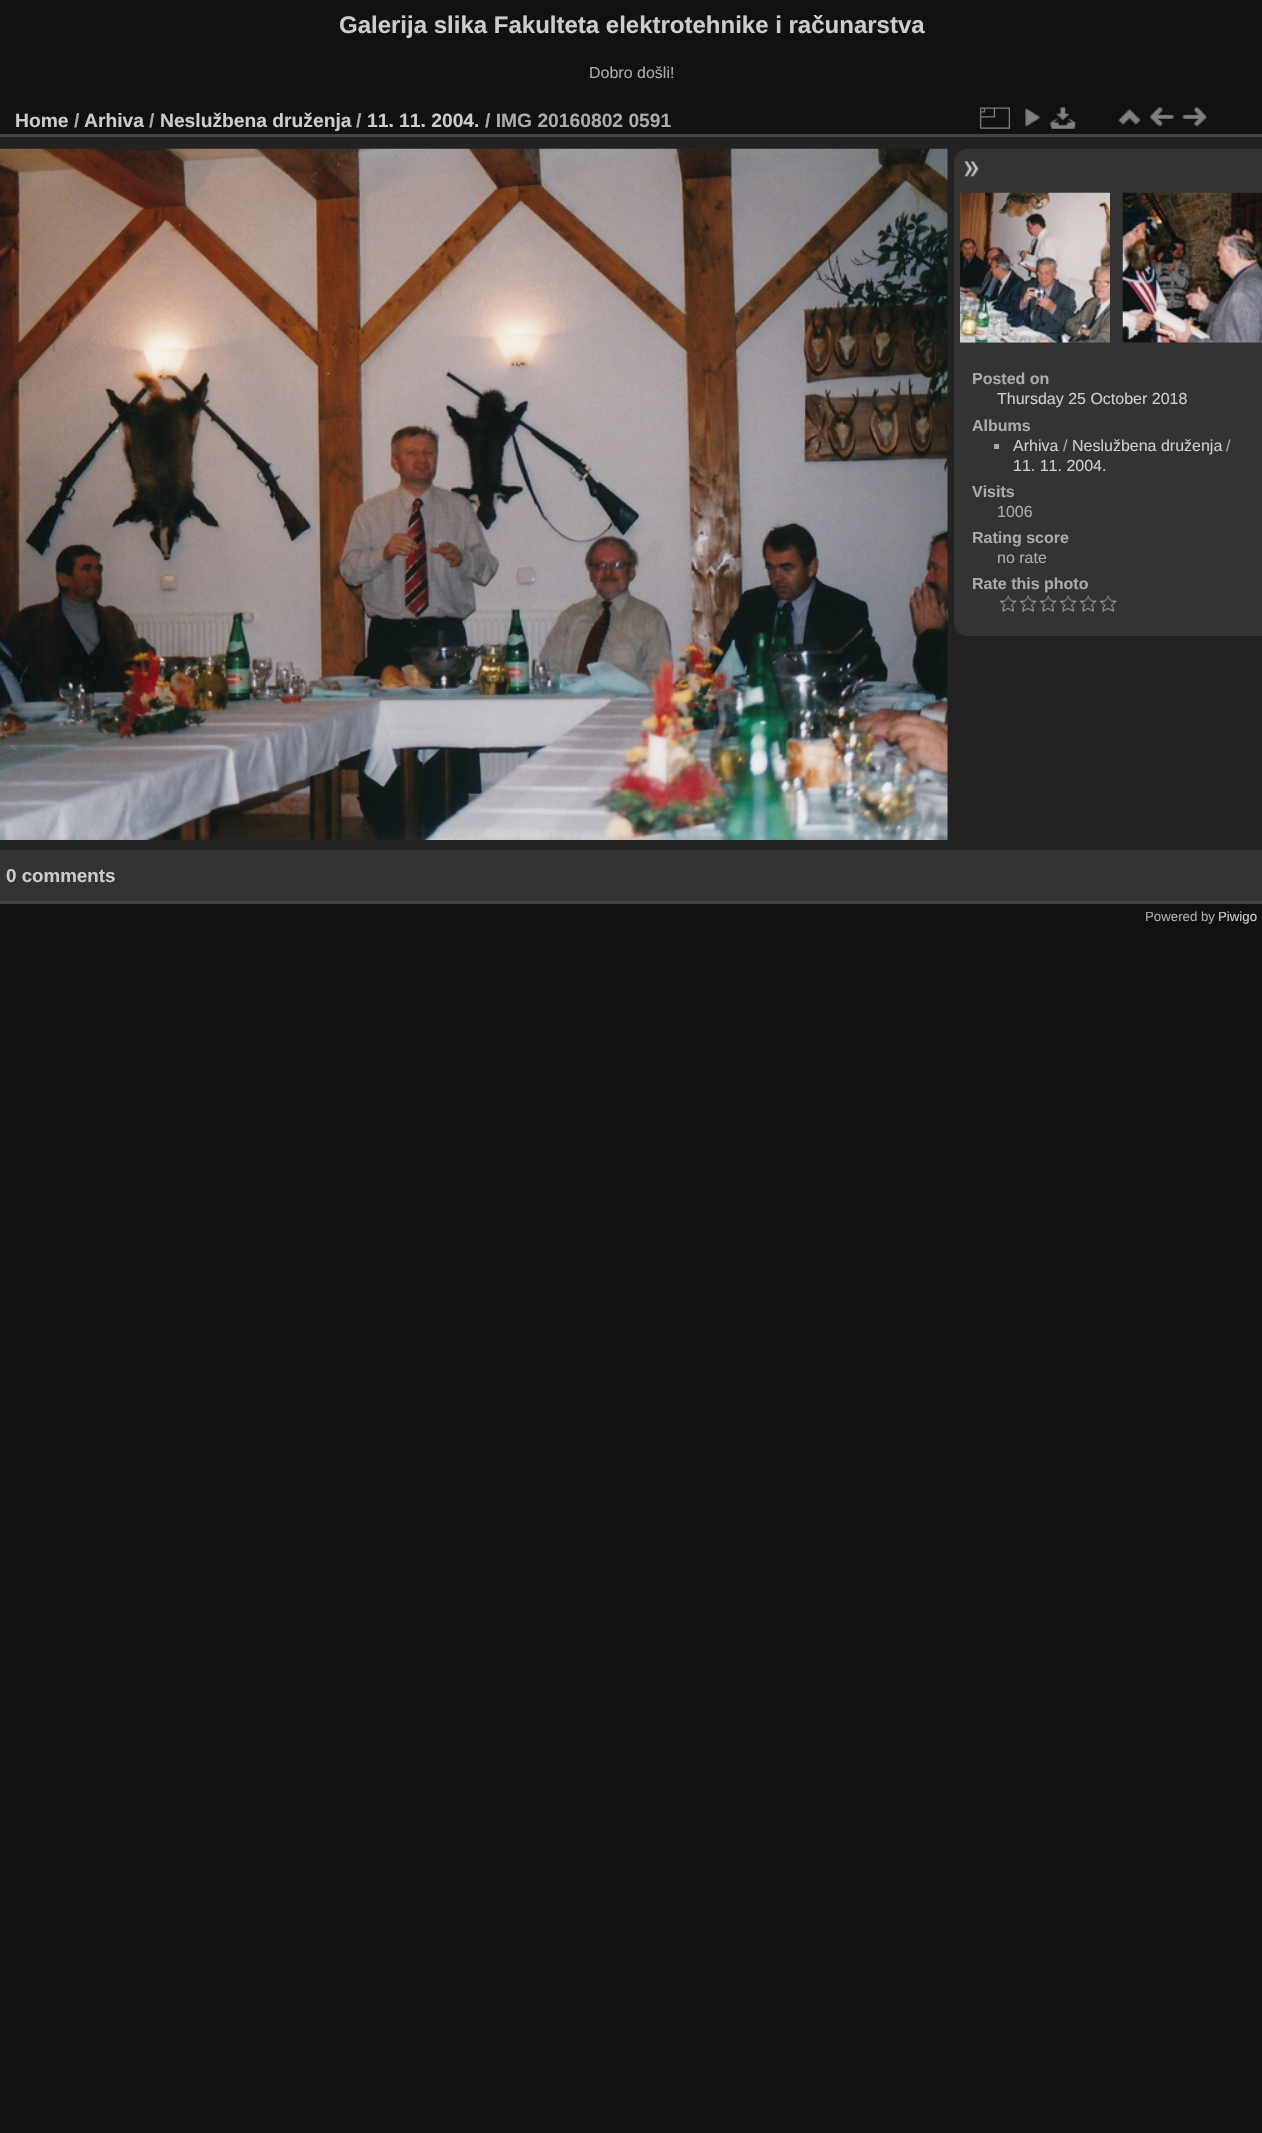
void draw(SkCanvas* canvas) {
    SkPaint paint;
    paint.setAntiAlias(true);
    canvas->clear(0xFF111111);
    SkFont font1(fontMgr->matchFamilyStyle("Liberation Sans", SkFontStyle::Bold()), 24);
    font1.setSubpixel(true);
    paint.setColor(0xFFCCCCCC);
    canvas->drawString("Galerija slika Fakulteta elektrotehnike i računarstva", 339, 33, font1, paint);
    SkFont font2(fontMgr->matchFamilyStyle("Liberation Sans", SkFontStyle::Normal()), 16);
    font2.setSubpixel(true);
    paint.setColor(0xFFAAAAAA);
    canvas->drawString("Dobro došli!", 589, 78, font2, paint);
    paint.setColor(0xFF222222);
    canvas->drawRect(SkRect::MakeXYWH(0, 137, 1262, 713), paint);
    paint.setColor(0xFF444444);
    canvas->drawRect(SkRect::MakeXYWH(0, 901, 1262, 3), paint);
    canvas->drawRect(SkRect::MakeXYWH(0, 134, 1262, 3), paint);
    SkFont font3(fontMgr->matchFamilyStyle("Liberation Sans", SkFontStyle::Bold()), 19.25f);
    font3.setSubpixel(true);
    paint.setColor(0xFFCCCCCC);
    canvas->drawString("Home", 15, 127, font3, paint);
    paint.setColor(0xFFAAAAAA);
    canvas->drawString("/", 74, 127, font3, paint);
    paint.setColor(0xFFCCCCCC);
    canvas->drawString("Arhiva", 84, 127, font3, paint);
    paint.setColor(0xFFAAAAAA);
    canvas->drawString("/", 149, 127, font3, paint);
    paint.setColor(0xFFCCCCCC);
    canvas->drawString("Neslužbena druženja", 160, 127, font3, paint);
    paint.setColor(0xFFAAAAAA);
    canvas->drawString("/", 356, 127, font3, paint);
    paint.setColor(0xFFCCCCCC);
    canvas->drawString("11. 11. 2004.", 367, 127, font3, paint);
    paint.setColor(0xFFAAAAAA);
    canvas->drawString("/ IMG 20160802 0591", 485, 127, font3, paint);
    canvas->drawImageRect(SkImages::DeferredFromEncodedData(SkData::MakeFromFileName("img1.png")), SkRect::MakeXYWH(979, 107, 31, 22), SkSamplingOptions());
    canvas->drawImageRect(SkImages::DeferredFromEncodedData(SkData::MakeFromFileName("img2.png")), SkRect::MakeXYWH(1025, 108, 16, 19), SkSamplingOptions());
    canvas->drawImageRect(SkImages::DeferredFromEncodedData(SkData::MakeFromFileName("img3.png")), SkRect::MakeXYWH(1050, 107, 26, 22), SkSamplingOptions());
    canvas->drawImageRect(SkImages::DeferredFromEncodedData(SkData::MakeFromFileName("img4.png")), SkRect::MakeXYWH(1118, 108, 23, 17), SkSamplingOptions());
    canvas->drawImageRect(SkImages::DeferredFromEncodedData(SkData::MakeFromFileName("img5.png")), SkRect::MakeXYWH(1150, 107, 24, 20), SkSamplingOptions());
    canvas->drawImageRect(SkImages::DeferredFromEncodedData(SkData::MakeFromFileName("img6.png")), SkRect::MakeXYWH(1182, 107, 25, 20), SkSamplingOptions());
    canvas->drawImageRect(SkImages::DeferredFromEncodedData(SkData::MakeFromFileName("img7.png")), SkRect::MakeXYWH(0, 148, 948, 692), SkSamplingOptions());
    paint.setColor(0xFF333333);
    canvas->drawPath(SkPathBuilder().moveTo(967, 149).lineTo(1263, 149).lineTo(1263, 636).lineTo(967, 636).cubicTo(960, 636, 954, 630, 954, 623).lineTo(954, 162).cubicTo(954, 155, 960, 149, 967, 149).close().detach(), paint);
    canvas->drawImageRect(SkImages::DeferredFromEncodedData(SkData::MakeFromFileName("img8.png")), SkRect::MakeXYWH(964, 161, 15, 16), SkSamplingOptions());
    canvas->drawImageRect(SkImages::DeferredFromEncodedData(SkData::MakeFromFileName("img9.png")), SkRect::MakeXYWH(960, 192, 150, 151), SkSamplingOptions());
    canvas->drawImageRect(SkImages::DeferredFromEncodedData(SkData::MakeFromFileName("img10.png")), SkRect::MakeXYWH(1122, 192, 140, 151), SkSamplingOptions());
    SkFont font4(fontMgr->matchFamilyStyle("Liberation Sans", SkFontStyle::Bold()), 16);
    font4.setSubpixel(true);
    paint.setColor(0xFFAAAAAA);
    canvas->drawString("Posted on", 972, 384, font4, paint);
    paint.setColor(0xFFCCCCCC);
    canvas->drawString("Thursday 25 October 2018", 997, 404, font2, paint);
    paint.setColor(0xFFAAAAAA);
    canvas->drawString("Albums", 972, 431, font4, paint);
    canvas->drawRect(SkRect::MakeXYWH(994, 444, 5, 5), paint);
    paint.setColor(0xFFCCCCCC);
    canvas->drawString("Arhiva", 1013, 451, font2, paint);
    paint.setColor(0xFFAAAAAA);
    canvas->drawString("/", 1063, 451, font2, paint);
    paint.setColor(0xFFCCCCCC);
    canvas->drawString("Neslužbena druženja", 1072, 451, font2, paint);
    paint.setColor(0xFFAAAAAA);
    canvas->drawString("/", 1226, 451, font2, paint);
    paint.setColor(0xFFCCCCCC);
    canvas->drawString("11. 11. 2004.", 1013, 471, font2, paint);
    paint.setColor(0xFFAAAAAA);
    canvas->drawString("Visits", 972, 497, font4, paint);
    canvas->drawString("1006", 997, 517, font2, paint);
    canvas->drawString("Rating score", 972, 543, font4, paint);
    canvas->drawString("no rate", 997, 563, font2, paint);
    canvas->drawString("Rate this photo", 972, 589, font4, paint);
    canvas->drawImageRect(SkImages::DeferredFromEncodedData(SkData::MakeFromFileName("img11.png")), SkRect::MakeXYWH(999, 595, 18, 17), SkSamplingOptions());
    canvas->drawImageRect(SkImages::DeferredFromEncodedData(SkData::MakeFromFileName("img12.png")), SkRect::MakeXYWH(1019, 595, 18, 17), SkSamplingOptions());
    canvas->drawImageRect(SkImages::DeferredFromEncodedData(SkData::MakeFromFileName("img11.png")), SkRect::MakeXYWH(1039, 595, 18, 17), SkSamplingOptions());
    canvas->drawImageRect(SkImages::DeferredFromEncodedData(SkData::MakeFromFileName("img11.png")), SkRect::MakeXYWH(1059, 595, 18, 17), SkSamplingOptions());
    canvas->drawImageRect(SkImages::DeferredFromEncodedData(SkData::MakeFromFileName("img11.png")), SkRect::MakeXYWH(1079, 595, 18, 17), SkSamplingOptions());
    canvas->drawImageRect(SkImages::DeferredFromEncodedData(SkData::MakeFromFileName("img11.png")), SkRect::MakeXYWH(1099, 595, 18, 17), SkSamplingOptions());
    paint.setColor(0xFF333333);
    canvas->drawRect(SkRect::MakeXYWH(0, 850, 1262, 51), paint);
    SkFont font5(fontMgr->matchFamilyStyle("Liberation Sans", SkFontStyle::Bold()), 18.75f);
    font5.setSubpixel(true);
    paint.setColor(0xFFCCCCCC);
    canvas->drawString("0 comments", 6, 882, font5, paint);
    SkFont font6(fontMgr->matchFamilyStyle("Liberation Sans", SkFontStyle::Normal()), 13.25f);
    font6.setSubpixel(true);
    paint.setColor(0xFFAAAAAA);
    canvas->drawString("Powered by", 1145, 921, font6, paint);
    paint.setColor(0xFFCCCCCC);
    canvas->drawString("Piwigo", 1218, 921, font6, paint);
}
